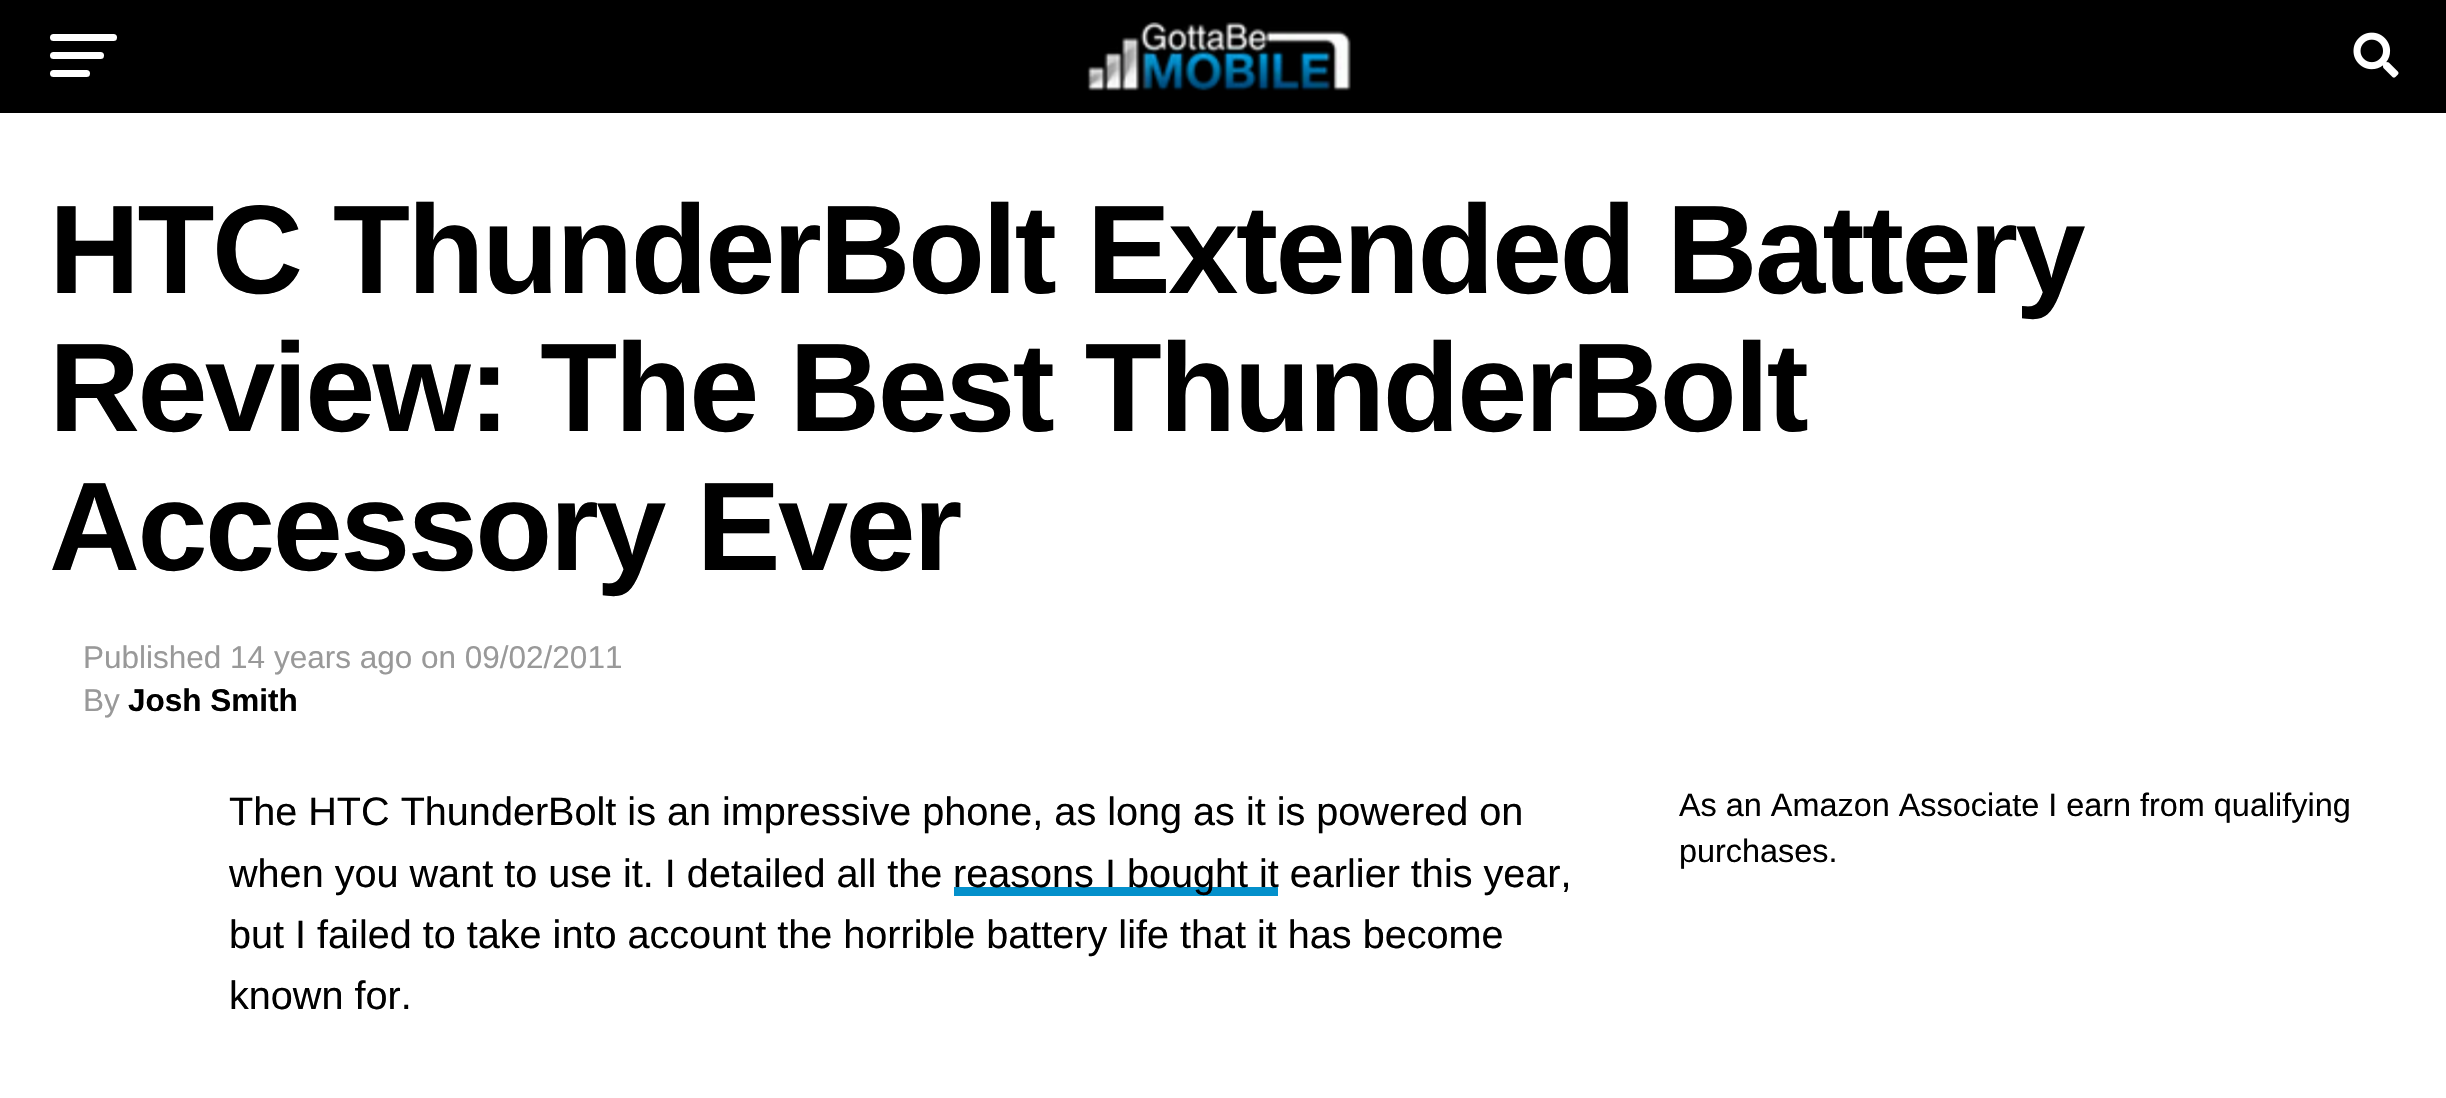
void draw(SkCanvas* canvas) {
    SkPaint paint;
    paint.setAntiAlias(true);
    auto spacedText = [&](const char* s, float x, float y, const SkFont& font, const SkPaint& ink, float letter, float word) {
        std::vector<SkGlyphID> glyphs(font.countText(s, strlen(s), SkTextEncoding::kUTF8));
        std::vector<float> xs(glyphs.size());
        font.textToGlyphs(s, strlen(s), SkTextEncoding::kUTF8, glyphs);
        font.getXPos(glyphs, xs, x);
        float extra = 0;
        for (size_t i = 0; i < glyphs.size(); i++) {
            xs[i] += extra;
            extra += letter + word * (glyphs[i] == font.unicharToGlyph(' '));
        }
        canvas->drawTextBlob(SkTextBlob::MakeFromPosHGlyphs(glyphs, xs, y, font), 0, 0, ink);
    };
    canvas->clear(0xFFFFFFFF);
    paint.setColor(0xFF000000);
    canvas->drawRect(SkRect::MakeXYWH(0, 0, 2446, 113), paint);
    paint.setColor(0xFFFFFFFF);
    canvas->drawRoundRect(SkRect::MakeXYWH(50, 34, 67, 7), 3.5f, 3.5f, paint);
    canvas->drawRoundRect(SkRect::MakeXYWH(50, 52, 54, 7), 3.5f, 3.5f, paint);
    canvas->drawRoundRect(SkRect::MakeXYWH(50, 70, 40, 7), 3.5f, 3.5f, paint);
    canvas->drawImageRect(SkImages::DeferredFromEncodedData(SkData::MakeFromFileName("img1.png")), SkRect::MakeXYWH(1087, 22, 264, 69), SkSamplingOptions());
    canvas->drawImageRect(SkImages::DeferredFromEncodedData(SkData::MakeFromFileName("img2.png")), SkRect::MakeXYWH(2353, 32, 46, 46), SkSamplingOptions());
    SkFont font1(fontMgr->matchFamilyStyle("Liberation Sans", SkFontStyle::Bold()), 126);
    font1.setSubpixel(true);
    paint.setColor(0xFF000000);
    spacedText("HTC ThunderBolt Extended Battery", 49, 293, font1, paint, -2.5f, 0);
    spacedText("Review: The Best ThunderBolt", 49, 431, font1, paint, -2.5f, 0);
    spacedText("Accessory Ever", 49, 570, font1, paint, -2.5f, 0);
    SkFont font2(fontMgr->matchFamilyStyle("Liberation Sans", SkFontStyle::Normal()), 31.5f);
    font2.setSubpixel(true);
    paint.setColor(0xFF999999);
    canvas->drawString("Published 14 years ago on 09/02/2011", 83, 668, font2, paint);
    canvas->drawString("By", 83, 711, font2, paint);
    SkFont font3(fontMgr->matchFamilyStyle("Liberation Sans", SkFontStyle::Bold()), 31.5f);
    font3.setSubpixel(true);
    paint.setColor(0xFF000000);
    canvas->drawString("Josh Smith", 128, 711, font3, paint);
    SkFont font4(fontMgr->matchFamilyStyle("Liberation Sans", SkFontStyle::Normal()), 39.6f);
    font4.setSubpixel(true);
    canvas->drawString("The HTC ThunderBolt is an impressive phone, as long as it is powered on", 229, 825, font4, paint);
    canvas->drawString("when you want to use it. I detailed all the", 229, 887, font4, paint);
    paint.setColor(0xFF0490CB);
    canvas->drawRect(SkRect::MakeXYWH(954, 887, 324, 9), paint);
    paint.setColor(0xFF000000);
    canvas->drawString("reasons I bought it earlier this year,", 953, 887, font4, paint);
    canvas->drawString("but I failed to take into account the horrible battery life that it has become", 229, 948, font4, paint);
    canvas->drawString("known for.", 229, 1009, font4, paint);
    SkFont font5(fontMgr->matchFamilyStyle("Liberation Sans", SkFontStyle::Normal()), 32.4f);
    font5.setSubpixel(true);
    canvas->drawString("As an Amazon Associate I earn from qualifying", 1679, 816, font5, paint);
    canvas->drawString("purchases.", 1679, 862, font5, paint);
}
